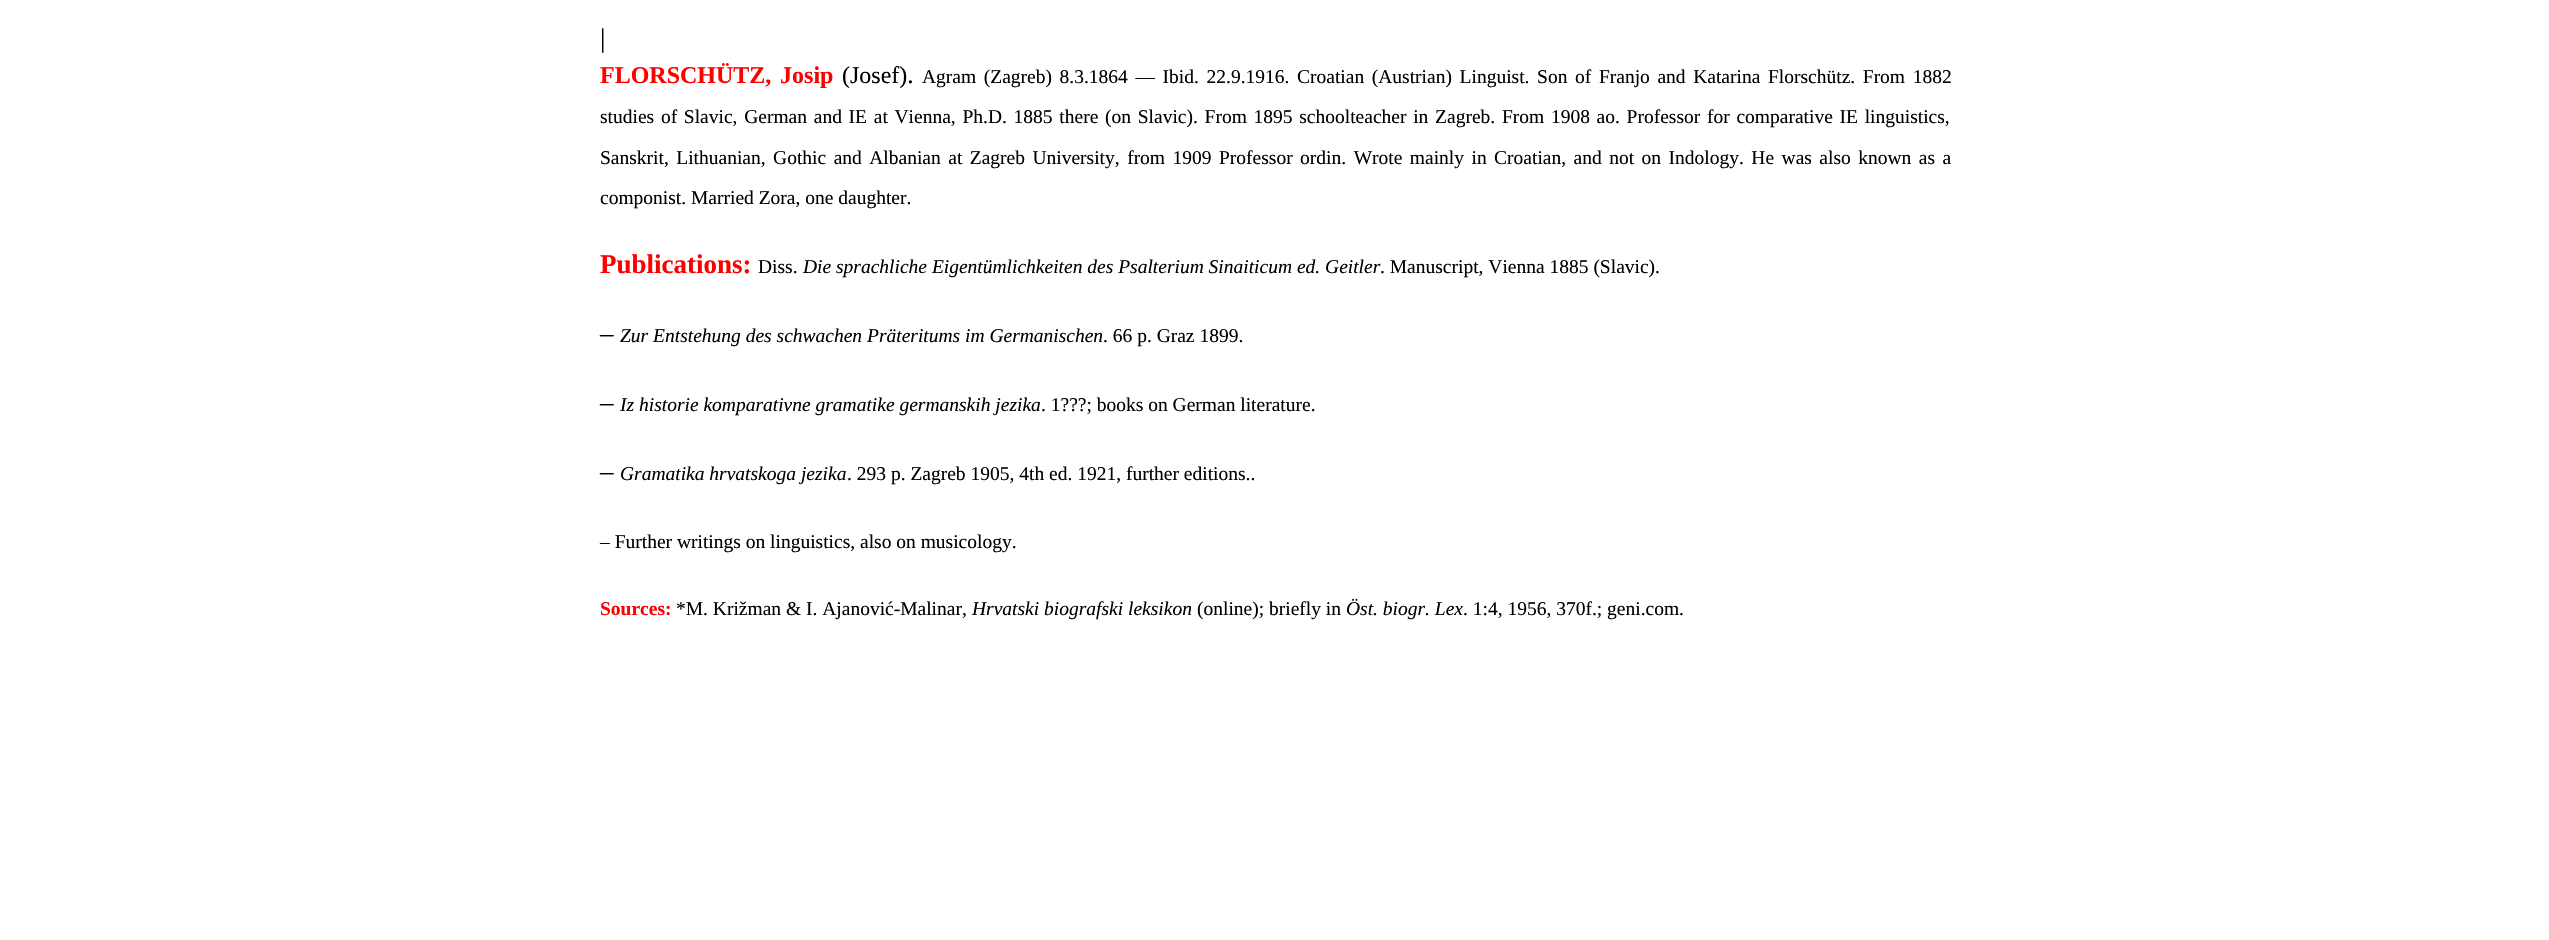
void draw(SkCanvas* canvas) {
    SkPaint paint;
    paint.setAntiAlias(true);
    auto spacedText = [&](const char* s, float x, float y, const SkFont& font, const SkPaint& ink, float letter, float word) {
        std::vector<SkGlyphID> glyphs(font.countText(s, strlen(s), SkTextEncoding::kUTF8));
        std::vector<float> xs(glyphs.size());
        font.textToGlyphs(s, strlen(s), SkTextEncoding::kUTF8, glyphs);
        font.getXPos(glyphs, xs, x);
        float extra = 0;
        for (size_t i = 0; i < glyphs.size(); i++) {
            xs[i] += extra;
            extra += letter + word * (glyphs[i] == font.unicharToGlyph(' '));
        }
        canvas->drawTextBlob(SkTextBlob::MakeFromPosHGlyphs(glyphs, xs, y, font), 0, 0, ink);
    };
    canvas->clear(0xFFFFFFFF);
    SkFont font1(fontMgr->matchFamilyStyle("Liberation Serif", SkFontStyle::Normal()), 27);
    font1.setSubpixel(true);
    paint.setColor(0xFF000000);
    canvas->drawString("|", 600, 47, font1, paint);
    SkFont font2(fontMgr->matchFamilyStyle("Liberation Serif", SkFontStyle::Bold()), 24);
    font2.setSubpixel(true);
    paint.setColor(0xFFFF0000);
    spacedText("FLORSCHÜTZ, Josip", 600, 83, font2, paint, 0, 2.75f);
    SkFont font3(fontMgr->matchFamilyStyle("Liberation Serif", SkFontStyle::Normal()), 24);
    font3.setSubpixel(true);
    paint.setColor(0xFF000000);
    canvas->drawString("(Josef)", 842, 83, font3, paint);
    canvas->drawString(".", 907, 83, font1, paint);
    SkFont font4(fontMgr->matchFamilyStyle("Liberation Serif", SkFontStyle::Normal()), 19.5f);
    font4.setSubpixel(true);
    spacedText("Agram (Zagreb) 8.3.1864 — Ibid. 22.9.1916. Croatian (Austrian) Linguist. Son of Franjo and Katarina Florschütz. From 1882", 922, 83, font4, paint, 0, 2.75f);
    spacedText("studies of Slavic, German and IE at Vienna, Ph.D. 1885 there (on Slavic). From 1895 schoolteacher in Zagreb. From 1908 ao. Professor for comparative IE linguistics,", 600, 123, font4, paint, 0, 1.85f);
    spacedText("Sanskrit, Lithuanian, Gothic and Albanian at Zagreb University, from 1909 Professor ordin. Wrote mainly in Croatian, and not on Indology. He was also known as a", 600, 164, font4, paint, 0, 2.6f);
    canvas->drawString("componist. Married Zora, one daughter.", 600, 204, font4, paint);
    SkFont font5(fontMgr->matchFamilyStyle("Liberation Serif", SkFontStyle::Bold()), 27);
    font5.setSubpixel(true);
    paint.setColor(0xFFFF0000);
    canvas->drawString("Publications:", 600, 273, font5, paint);
    paint.setColor(0xFF000000);
    canvas->drawString("Diss.", 758, 273, font4, paint);
    SkFont font6(fontMgr->matchFamilyStyle("Liberation Serif", SkFontStyle::Italic()), 19.5f);
    font6.setSubpixel(true);
    canvas->drawString("Die sprachliche Eigentümlichkeiten des Psalterium Sinaiticum ed. Geitler", 803, 273, font6, paint);
    canvas->drawString(". Manuscript, Vienna 1885 (Slavic).", 1380, 273, font4, paint);
    canvas->drawString("–", 600, 342, font1, paint);
    canvas->drawString("Zur Entstehung des schwachen Präteritums im Germanischen", 620, 342, font6, paint);
    canvas->drawString(". 66 p. Graz 1899.", 1103, 342, font4, paint);
    canvas->drawString("–", 600, 411, font1, paint);
    canvas->drawString("Iz historie komparativne gramatike germanskih jezika", 620, 411, font6, paint);
    canvas->drawString(". 1?\077?; books on German literature.", 1041, 411, font4, paint);
    canvas->drawString("–", 600, 480, font1, paint);
    canvas->drawString("Gramatika hrvatskoga jezika", 620, 480, font6, paint);
    canvas->drawString(". 293 p. Zagreb 1905, 4th ed. 1921, further editions..", 847, 480, font4, paint);
    canvas->drawString("– Further writings on linguistics, also on musicology.", 600, 548, font4, paint);
    SkFont font7(fontMgr->matchFamilyStyle("Liberation Serif", SkFontStyle::Bold()), 19.5f);
    font7.setSubpixel(true);
    paint.setColor(0xFFFF0000);
    canvas->drawString("Sources:", 600, 615, font7, paint);
    paint.setColor(0xFF000000);
    canvas->drawString("*M. Križman & I. Ajanović-Malinar,", 676, 615, font4, paint);
    canvas->drawString("Hrvatski biografski leksikon", 972, 615, font6, paint);
    canvas->drawString("(online); briefly in", 1197, 615, font4, paint);
    canvas->drawString("Öst. biogr. Lex", 1346, 615, font6, paint);
    canvas->drawString(". 1:4, 1956, 370f.; geni.com.", 1463, 615, font4, paint);
}
